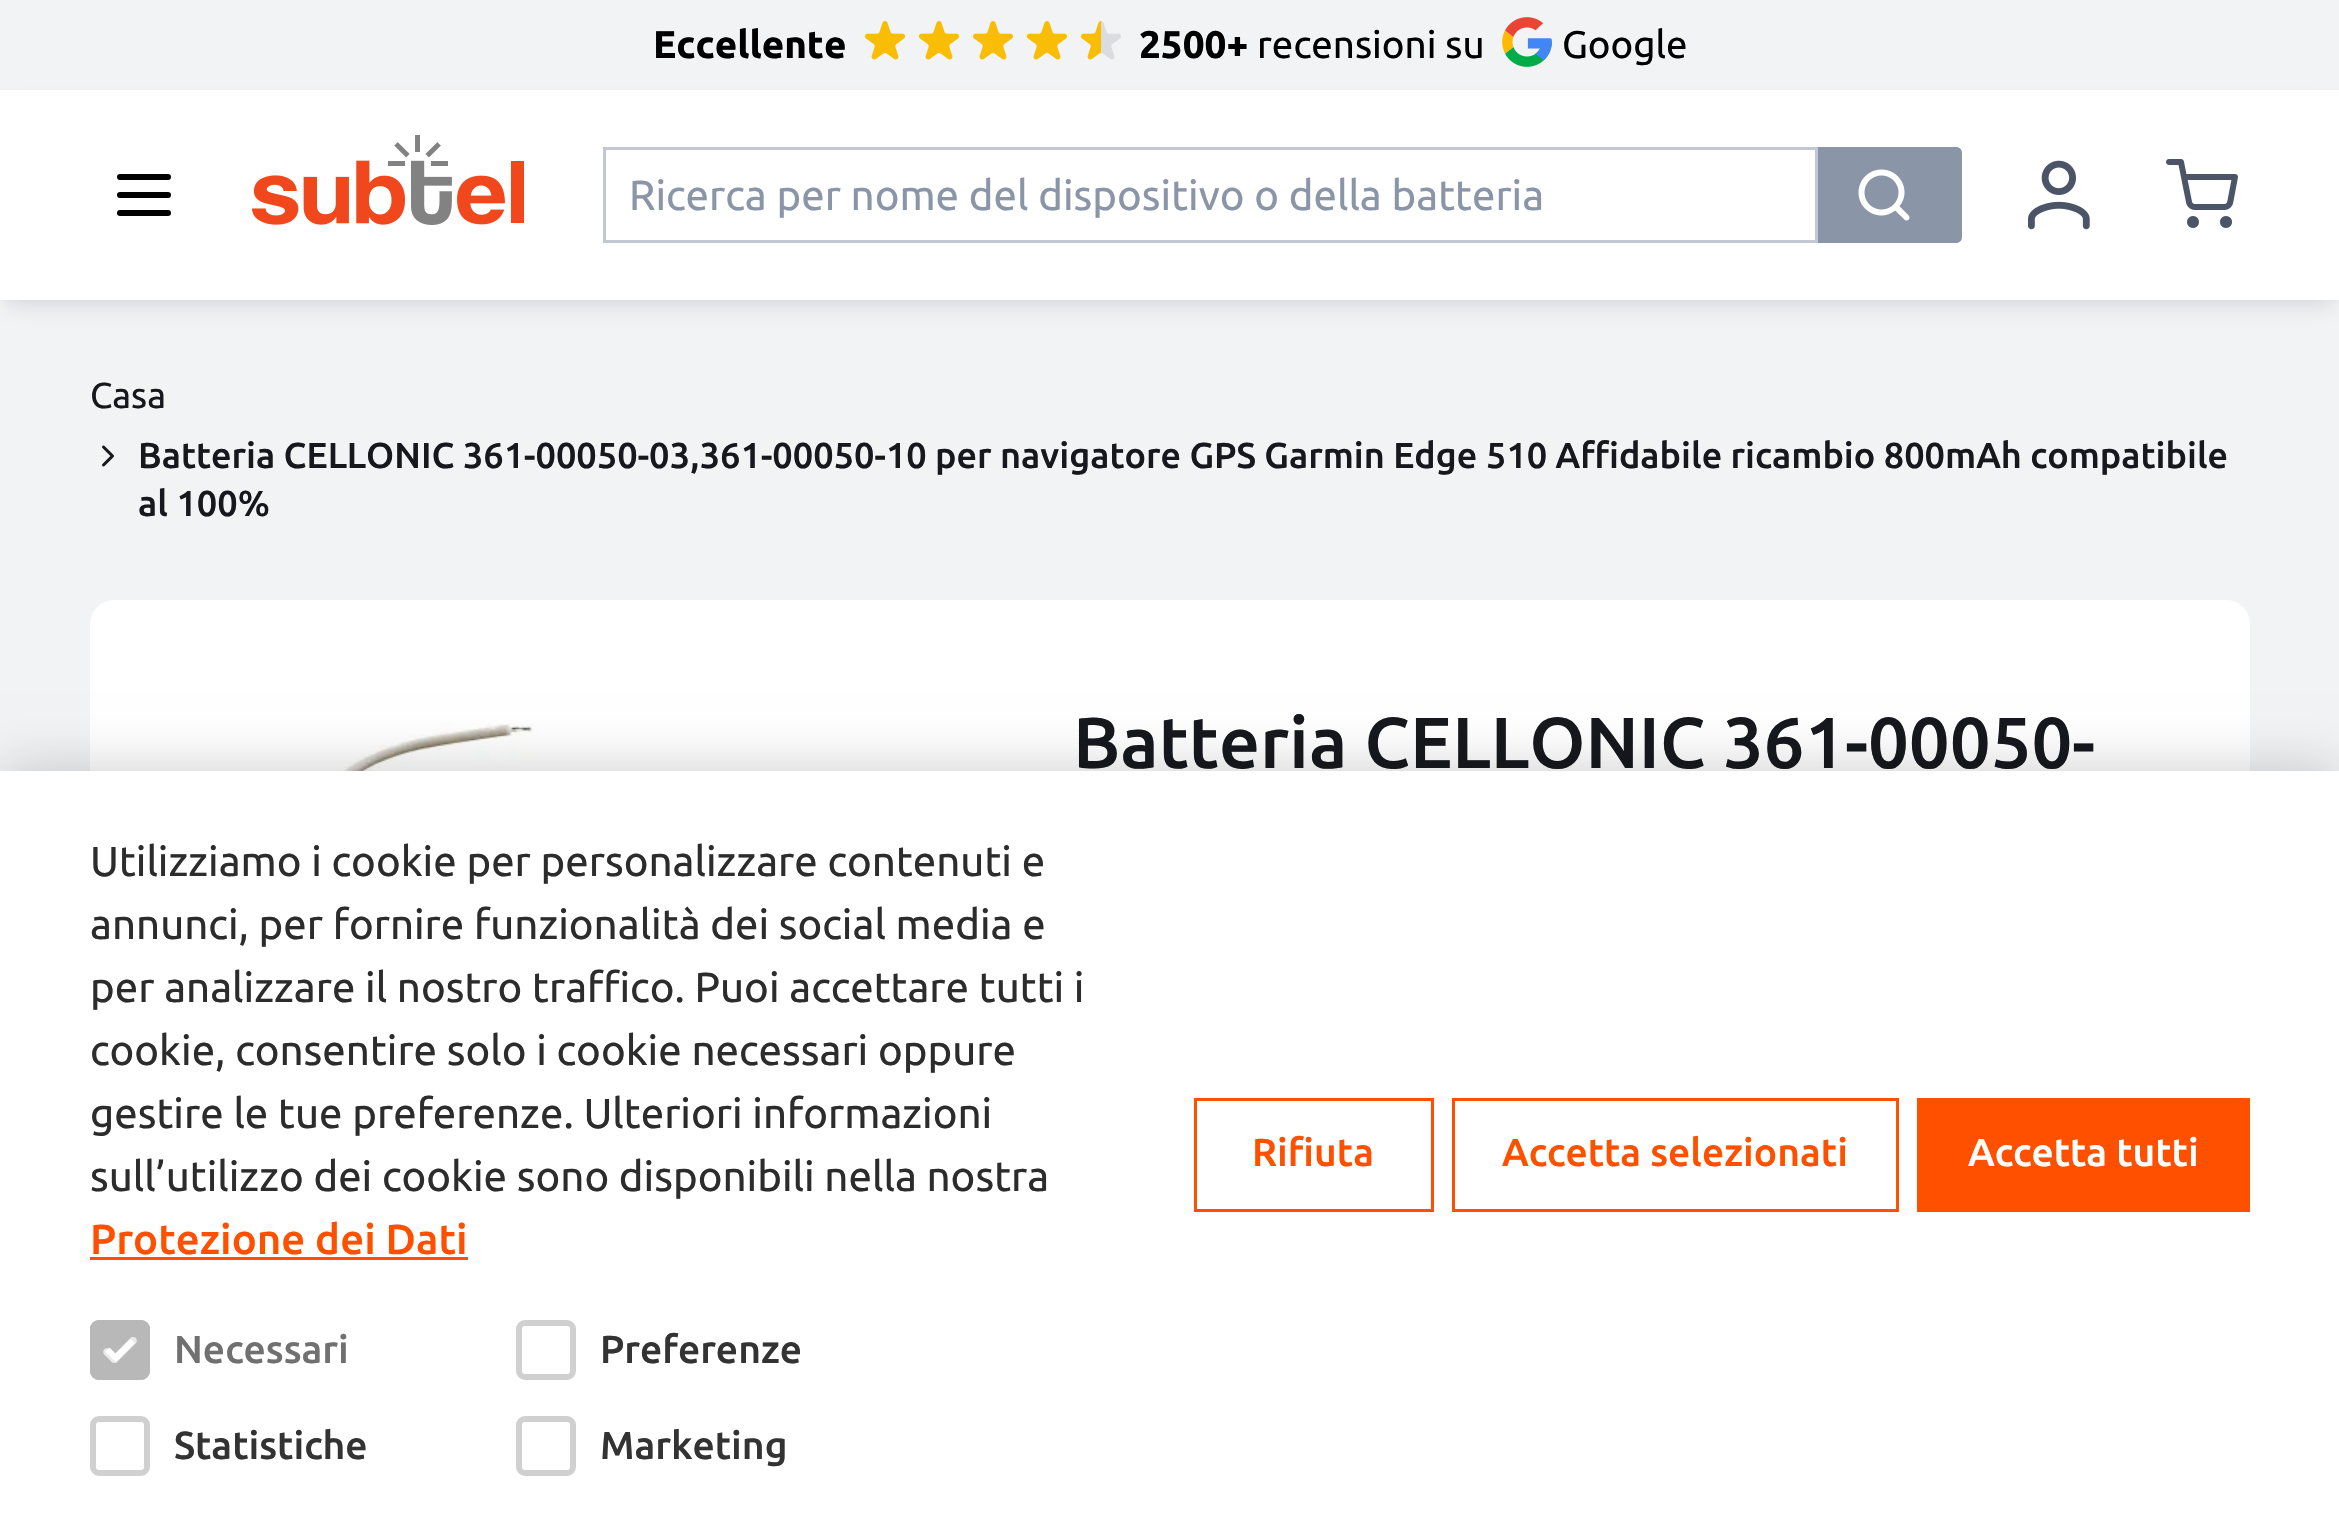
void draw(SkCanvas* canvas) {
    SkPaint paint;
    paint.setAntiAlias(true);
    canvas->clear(0xFFF1F3F5);
    SkFont font1(fontMgr->matchFamilyStyle("Ubuntu", SkFontStyle::Bold()), 38.5f);
    font1.setSubpixel(true);
    paint.setColor(0xFF000000);
    canvas->drawString("Eccellente", 653, 58, font1, paint);
    canvas->drawImageRect(SkImages::DeferredFromEncodedData(SkData::MakeFromFileName("img1.png")), SkRect::MakeXYWH(864, 21, 42, 39), SkSamplingOptions());
    canvas->drawImageRect(SkImages::DeferredFromEncodedData(SkData::MakeFromFileName("img1.png")), SkRect::MakeXYWH(918, 21, 42, 39), SkSamplingOptions());
    canvas->drawImageRect(SkImages::DeferredFromEncodedData(SkData::MakeFromFileName("img1.png")), SkRect::MakeXYWH(972, 21, 42, 39), SkSamplingOptions());
    canvas->drawImageRect(SkImages::DeferredFromEncodedData(SkData::MakeFromFileName("img1.png")), SkRect::MakeXYWH(1026, 21, 42, 39), SkSamplingOptions());
    canvas->drawImageRect(SkImages::DeferredFromEncodedData(SkData::MakeFromFileName("img2.png")), SkRect::MakeXYWH(1080, 21, 41, 39), SkSamplingOptions());
    canvas->drawString("2500+", 1139, 58, font1, paint);
    SkFont font2(fontMgr->matchFamilyStyle("Ubuntu", SkFontStyle::Normal()), 38.5f);
    font2.setSubpixel(true);
    canvas->drawString("recensioni su", 1257, 58, font2, paint);
    canvas->drawImageRect(SkImages::DeferredFromEncodedData(SkData::MakeFromFileName("img3.png")), SkRect::MakeXYWH(1502, 17, 50, 50), SkSamplingOptions());
    canvas->drawString("Google", 1562, 58, font2, paint);
    paint.setColor(0x1A101828);
    paint.setMaskFilter(SkMaskFilter::MakeBlur(kNormal_SkBlurStyle, 12));
    canvas->drawRect(SkRect::MakeXYWH(6, 108, 2328, 198), paint);
    paint.setMaskFilter(nullptr);
    paint.setColor(0x0F101828);
    paint.setMaskFilter(SkMaskFilter::MakeBlur(kNormal_SkBlurStyle, 6));
    canvas->drawRect(SkRect::MakeXYWH(6, 102, 2328, 198), paint);
    paint.setMaskFilter(nullptr);
    paint.setColor(0xFFFFFFFF);
    canvas->drawRect(SkRect::MakeXYWH(0, 90, 2339, 210), paint);
    paint.setStyle(SkPaint::kStroke_Style);
    paint.setStrokeWidth(6);
    paint.setStrokeCap(SkPaint::kRound_Cap);
    paint.setStrokeJoin(SkPaint::kRound_Join);
    paint.setColor(0xFF000000);
    canvas->drawPath(SkPathBuilder().moveTo(120, 177).lineTo(168, 177).moveTo(120, 195).lineTo(168, 195).moveTo(120, 213).lineTo(168, 213).detach(), paint);
    canvas->drawImageRect(SkImages::DeferredFromEncodedData(SkData::MakeFromFileName("img4.png")), SkRect::MakeXYWH(252, 135, 272, 90), SkSamplingOptions());
    paint.setStrokeWidth(3);
    paint.setStrokeCap(SkPaint::kButt_Cap);
    paint.setStrokeJoin(SkPaint::kMiter_Join);
    paint.setColor(0xFFC1C8D2);
    canvas->drawRect(SkRect::MakeXYWH(604.5f, 148.5f, 1212, 93), paint);
    SkFont font3(fontMgr->matchFamilyStyle("Ubuntu", SkFontStyle::Normal()), 42);
    font3.setSubpixel(true);
    paint.setStyle(SkPaint::kFill_Style);
    paint.setColor(0xFF8A96A8);
    canvas->drawString("Ricerca per nome del dispositivo o della batteria", 629, 210, font3, paint);
    canvas->drawPath(SkPathBuilder().moveTo(1818, 147).lineTo(1956, 147).cubicTo(1959.5f, 147, 1962, 149.5f, 1962, 153).lineTo(1962, 237).cubicTo(1962, 240.5f, 1959.5f, 243, 1956, 243).lineTo(1818, 243).close().detach(), paint);
    canvas->drawImageRect(SkImages::DeferredFromEncodedData(SkData::MakeFromFileName("img5.png")), SkRect::MakeXYWH(1858, 169, 52, 52), SkSamplingOptions());
    canvas->drawImageRect(SkImages::DeferredFromEncodedData(SkData::MakeFromFileName("img6.png")), SkRect::MakeXYWH(2028, 160, 62, 70), SkSamplingOptions());
    canvas->drawImageRect(SkImages::DeferredFromEncodedData(SkData::MakeFromFileName("img7.png")), SkRect::MakeXYWH(2166, 159, 72, 69), SkSamplingOptions());
    SkFont font4(fontMgr->matchFamilyStyle("Ubuntu", SkFontStyle::Normal()), 36);
    font4.setSubpixel(true);
    paint.setColor(0xFF16181D);
    canvas->drawString("Casa", 90, 408, font4, paint);
    canvas->drawImageRect(SkImages::DeferredFromEncodedData(SkData::MakeFromFileName("img8.png")), SkRect::MakeXYWH(102, 445, 12, 22), SkSamplingOptions());
    SkFont font5(fontMgr->matchFamilyStyle("Ubuntu", SkFontStyle(500, SkFontStyle::kNormal_Width, SkFontStyle::kUpright_Slant)), 36);
    font5.setSubpixel(true);
    canvas->drawString("Batteria CELLONIC 361-00050-03,361-00050-10 per navigatore GPS Garmin Edge 510 Affidabile ricambio 800mAh compatibile", 138, 468, font5, paint);
    canvas->drawString("al 100%", 138, 516, font5, paint);
    paint.setColor(0xFFFFFFFF);
    canvas->drawRoundRect(SkRect::MakeXYWH(90, 600, 2160, 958), 24, 24, paint);
    canvas->drawImageRect(SkImages::DeferredFromEncodedData(SkData::MakeFromFileName("img9.png")), SkRect::MakeXYWH(226, 723, 747, 48), SkSamplingOptions());
    SkFont font6(fontMgr->matchFamilyStyle("Ubuntu", SkFontStyle(500, SkFontStyle::kNormal_Width, SkFontStyle::kUpright_Slant)), 72);
    font6.setSubpixel(true);
    paint.setColor(0xFF16181D);
    canvas->drawString("Batteria CELLONIC 361-00050-", 1073, 768, font6, paint);
    paint.setColor(0x33000000);
    paint.setMaskFilter(SkMaskFilter::MakeBlur(kNormal_SkBlurStyle, 27));
    canvas->drawRect(SkRect::MakeXYWH(0, 771, 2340, 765), paint);
    paint.setMaskFilter(nullptr);
    paint.setColor(0xFFFFFFFF);
    canvas->drawRect(SkRect::MakeXYWH(0, 771, 2339, 763), paint);
    paint.setColor(0xFF2C2C2C);
    canvas->drawString("Utilizziamo i cookie per personalizzare contenuti e", 90, 876, font3, paint);
    canvas->drawString("annunci, per fornire funzionalità dei social media e", 90, 939, font3, paint);
    canvas->drawString("per analizzare il nostro traffico. Puoi accettare tutti i", 90, 1002, font3, paint);
    canvas->drawString("cookie, consentire solo i cookie necessari oppure", 90, 1065, font3, paint);
    canvas->drawString("gestire le tue preferenze. Ulteriori informazioni", 90, 1128, font3, paint);
    canvas->drawString("sull’utilizzo dei cookie sono disponibili nella nostra", 90, 1191, font3, paint);
    SkFont font7(fontMgr->matchFamilyStyle("Ubuntu", SkFontStyle(500, SkFontStyle::kNormal_Width, SkFontStyle::kUpright_Slant)), 42);
    font7.setSubpixel(true);
    paint.setColor(0xFFFF5000);
    canvas->drawString("Protezione dei Dati", 90, 1254, font7, paint);
    canvas->drawRect(SkRect::MakeXYWH(90, 1257, 378, 3), paint);
    paint.setColor(0xFFB8B8B8);
    canvas->drawRoundRect(SkRect::MakeXYWH(90, 1320, 60, 60), 9, 9, paint);
    canvas->drawImageRect(SkImages::DeferredFromEncodedData(SkData::MakeFromFileName("img10.png")), SkRect::MakeXYWH(103, 1337, 34, 26), SkSamplingOptions());
    paint.setStyle(SkPaint::kStroke_Style);
    paint.setStrokeWidth(6);
    canvas->drawRoundRect(SkRect::MakeXYWH(93, 1323, 54, 54), 6, 6, paint);
    paint.setStyle(SkPaint::kFill_Style);
    paint.setColor(0xFFFFFFFF);
    canvas->drawPath(SkPathBuilder().moveTo(130.5f, 1339).lineTo(135, 1343).lineTo(116, 1362).lineTo(111.5f, 1358).close().detach(), paint);
    canvas->drawPath(SkPathBuilder().moveTo(109.5f, 1347.5f).lineTo(120, 1358).lineTo(116, 1362).lineTo(105, 1351.5f).close().detach(), paint);
    SkFont font8(fontMgr->matchFamilyStyle("Ubuntu", SkFontStyle(500, SkFontStyle::kNormal_Width, SkFontStyle::kUpright_Slant)), 39);
    font8.setSubpixel(true);
    paint.setColor(0xFF707070);
    canvas->drawString("Necessari", 174, 1363, font8, paint);
    paint.setStyle(SkPaint::kStroke_Style);
    paint.setColor(0xFFD0D0D0);
    canvas->drawRoundRect(SkRect::MakeXYWH(519, 1323, 54, 54), 6, 6, paint);
    paint.setStyle(SkPaint::kFill_Style);
    paint.setColor(0xFF333333);
    canvas->drawString("Preferenze", 600, 1363, font8, paint);
    paint.setStyle(SkPaint::kStroke_Style);
    paint.setColor(0xFFD0D0D0);
    canvas->drawRoundRect(SkRect::MakeXYWH(93, 1419, 54, 54), 6, 6, paint);
    paint.setStyle(SkPaint::kFill_Style);
    paint.setColor(0xFF333333);
    canvas->drawString("Statistiche", 174, 1459, font8, paint);
    paint.setStyle(SkPaint::kStroke_Style);
    paint.setColor(0xFFD0D0D0);
    canvas->drawRoundRect(SkRect::MakeXYWH(519, 1419, 54, 54), 6, 6, paint);
    paint.setStyle(SkPaint::kFill_Style);
    paint.setColor(0xFF333333);
    canvas->drawString("Marketing", 600, 1459, font8, paint);
    paint.setStyle(SkPaint::kStroke_Style);
    paint.setStrokeWidth(3);
    paint.setColor(0xFFFF5000);
    canvas->drawRect(SkRect::MakeXYWH(1195.5f, 1099.5f, 237, 111), paint);
    paint.setStyle(SkPaint::kFill_Style);
    canvas->drawString("Rifiuta", 1252, 1166, font8, paint);
    paint.setStyle(SkPaint::kStroke_Style);
    canvas->drawRect(SkRect::MakeXYWH(1453.5f, 1099.5f, 444, 111), paint);
    paint.setStyle(SkPaint::kFill_Style);
    canvas->drawString("Accetta selezionati", 1502, 1166, font8, paint);
    canvas->drawRect(SkRect::MakeXYWH(1917, 1098, 333, 114), paint);
    paint.setColor(0xFFFFFFFF);
    canvas->drawString("Accetta tutti", 1968, 1166, font8, paint);
}
